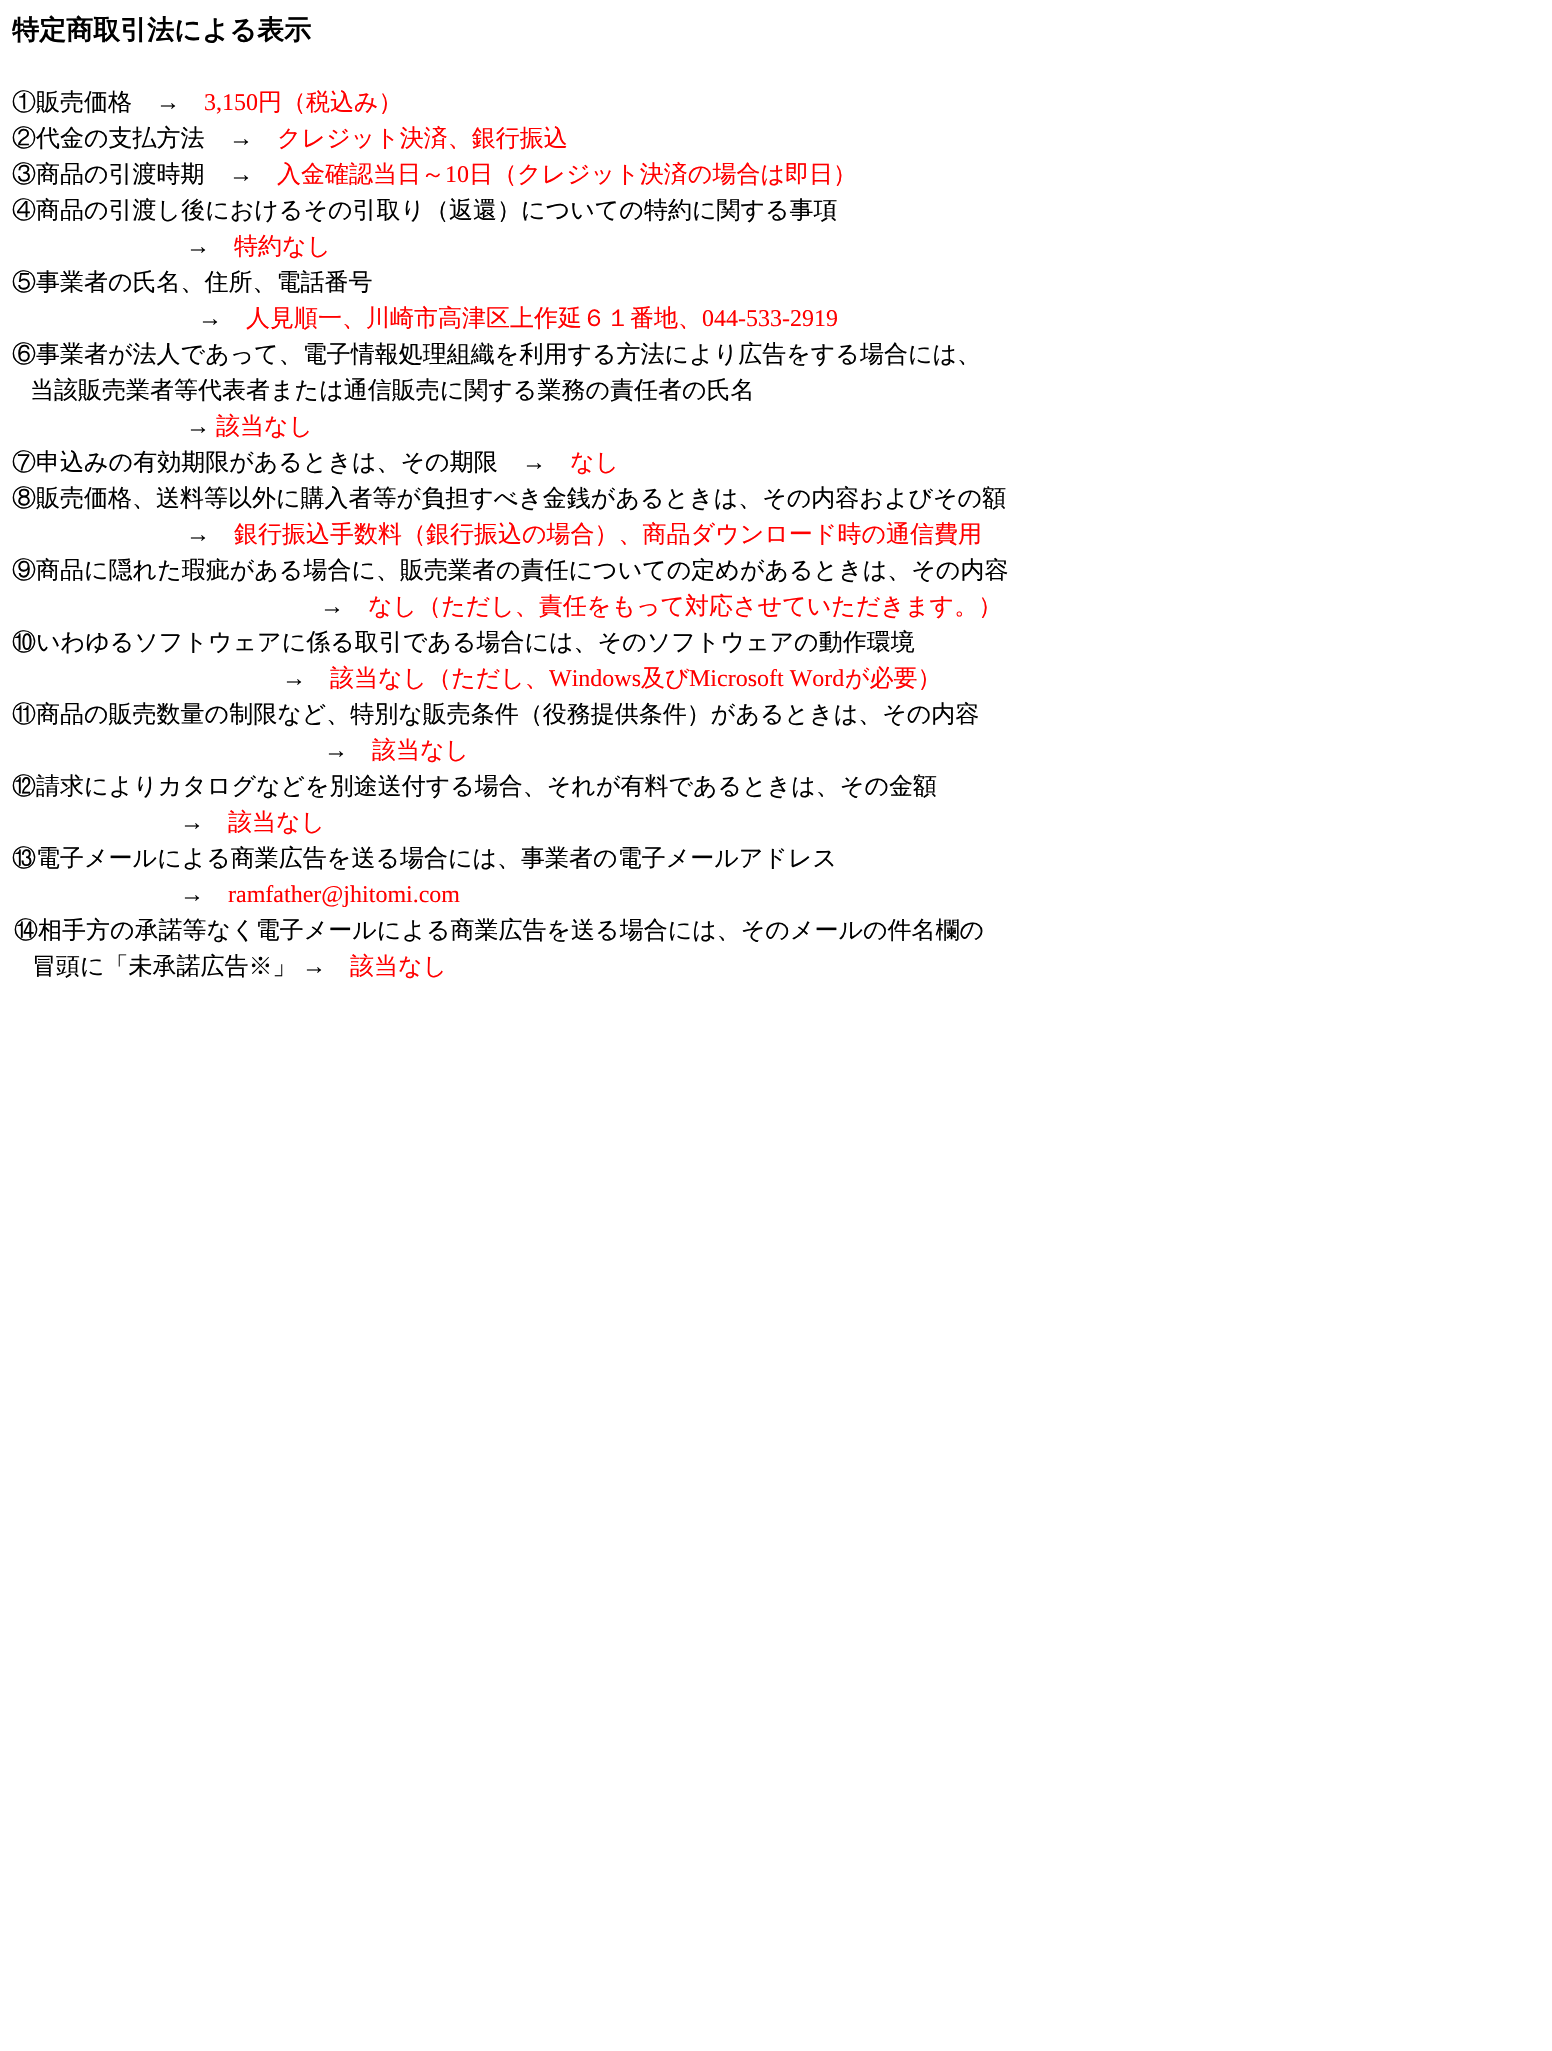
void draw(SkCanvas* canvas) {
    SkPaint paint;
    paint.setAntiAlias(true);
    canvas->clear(0xFFFFFFFF);
    SkFont font1(fontMgr->matchFamilyStyle("WenQuanYi Zen Hei", SkFontStyle::Bold()), 27);
    font1.setSubpixel(true);
    paint.setColor(0xFF000000);
    canvas->drawString("特定商取引法による表示", 12, 39, font1, paint);
    SkFont font2(fontMgr->matchFamilyStyle("WenQuanYi Zen Hei", SkFontStyle(500, SkFontStyle::kNormal_Width, SkFontStyle::kUpright_Slant)), 24);
    font2.setSubpixel(true);
    canvas->drawString("①販売価格", 12, 110, font2, paint);
    SkFont font3(fontMgr->matchFamilyStyle("Liberation Serif", SkFontStyle::Normal()), 24);
    font3.setSubpixel(true);
    canvas->drawString("→", 156, 110, font3, paint);
    paint.setColor(0xFFFF0000);
    canvas->drawString("3,150", 204, 110, font3, paint);
    canvas->drawString("円（税込み）", 258, 110, font2, paint);
    paint.setColor(0xFF000000);
    canvas->drawString("②代金の支払方法", 12, 146, font2, paint);
    canvas->drawString("→", 229, 146, font3, paint);
    paint.setColor(0xFFFF0000);
    canvas->drawString("クレジット決済、銀行振込", 277, 146, font2, paint);
    paint.setColor(0xFF000000);
    canvas->drawString("③商品の引渡時期", 12, 182, font2, paint);
    canvas->drawString("→", 229, 182, font3, paint);
    paint.setColor(0xFFFF0000);
    canvas->drawString("入金確認当日～", 277, 182, font2, paint);
    canvas->drawString("10", 445, 182, font3, paint);
    canvas->drawString("日（クレジット決済の場合は即日）", 469, 182, font2, paint);
    paint.setColor(0xFF000000);
    canvas->drawString("④商品の引渡し後におけるその引取り（返還）についての特約に関する事項", 12, 218, font2, paint);
    canvas->drawString("→", 186, 254, font3, paint);
    paint.setColor(0xFFFF0000);
    canvas->drawString("特約なし", 234, 254, font2, paint);
    paint.setColor(0xFF000000);
    canvas->drawString("⑤事業者の氏名、住所、電話番号", 12, 290, font2, paint);
    canvas->drawString("→", 198, 326, font3, paint);
    paint.setColor(0xFFFF0000);
    canvas->drawString("人見順一、川崎市高津区上作延６１番地、", 246, 326, font2, paint);
    canvas->drawString("044-533-2919", 702, 326, font3, paint);
    paint.setColor(0xFF000000);
    canvas->drawString("⑥事業者が法人であって、電子情報処理組織を利用する方法により広告をする場合には、", 12, 362, font2, paint);
    canvas->drawString("当該販売業者等代表者または通信販売に関する業務の責任者の氏名", 30, 398, font2, paint);
    canvas->drawString("→", 186, 434, font3, paint);
    paint.setColor(0xFFFF0000);
    canvas->drawString("該当なし", 216, 434, font2, paint);
    paint.setColor(0xFF000000);
    canvas->drawString("⑦申込みの有効期限があるときは、その期限", 12, 470, font2, paint);
    canvas->drawString("→", 522, 470, font3, paint);
    paint.setColor(0xFFFF0000);
    canvas->drawString("なし", 570, 470, font2, paint);
    paint.setColor(0xFF000000);
    canvas->drawString("⑧販売価格、送料等以外に購入者等が負担すべき金銭があるときは、その内容およびその額", 12, 506, font2, paint);
    canvas->drawString("→", 186, 542, font3, paint);
    paint.setColor(0xFFFF0000);
    canvas->drawString("銀行振込手数料（銀行振込の場合）、商品ダウンロード時の通信費用", 234, 542, font2, paint);
    paint.setColor(0xFF000000);
    canvas->drawString("⑨商品に隠れた瑕疵がある場合に、販売業者の責任についての定めがあるときは、その内容", 12, 578, font2, paint);
    canvas->drawString("→", 320, 614, font3, paint);
    paint.setColor(0xFFFF0000);
    canvas->drawString("なし（ただし、責任をもって対応させていただきます。）", 368, 614, font2, paint);
    paint.setColor(0xFF000000);
    canvas->drawString("⑩いわゆるソフトウェアに係る取引である場合には、そのソフトウェアの動作環境", 12, 650, font2, paint);
    canvas->drawString("→", 282, 686, font3, paint);
    paint.setColor(0xFFFF0000);
    canvas->drawString("該当なし（ただし、", 330, 686, font2, paint);
    canvas->drawString("Windows", 549, 686, font3, paint);
    canvas->drawString("及び", 641, 686, font2, paint);
    canvas->drawString("Microsoft Word", 689, 686, font3, paint);
    canvas->drawString("が必要）", 845, 686, font2, paint);
    paint.setColor(0xFF000000);
    canvas->drawString("⑪商品の販売数量の制限など、特別な販売条件（役務提供条件）があるときは、その内容", 12, 722, font2, paint);
    canvas->drawString("→", 324, 758, font3, paint);
    paint.setColor(0xFFFF0000);
    canvas->drawString("該当なし", 372, 758, font2, paint);
    paint.setColor(0xFF000000);
    canvas->drawString("⑫請求によりカタログなどを別途送付する場合、それが有料であるときは、その金額", 12, 794, font2, paint);
    canvas->drawString("→", 180, 830, font3, paint);
    paint.setColor(0xFFFF0000);
    canvas->drawString("該当なし", 228, 830, font2, paint);
    paint.setColor(0xFF000000);
    canvas->drawString("⑬電子メールによる商業広告を送る場合には、事業者の電子メールアドレス", 12, 866, font2, paint);
    canvas->drawString("→", 180, 902, font3, paint);
    paint.setColor(0xFFFF0000);
    canvas->drawString("ramfather@jhitomi.com", 228, 902, font3, paint);
    paint.setColor(0xFF000000);
    canvas->drawString("⑭相手方の承諾等なく電子メールによる商業広告を送る場合には、そのメールの件名欄の", 14, 938, font2, paint);
    canvas->drawString("冒頭に「未承諾広告※」", 32, 974, font2, paint);
    canvas->drawString("→", 302, 974, font3, paint);
    paint.setColor(0xFFFF0000);
    canvas->drawString("該当なし", 350, 974, font2, paint);
}
